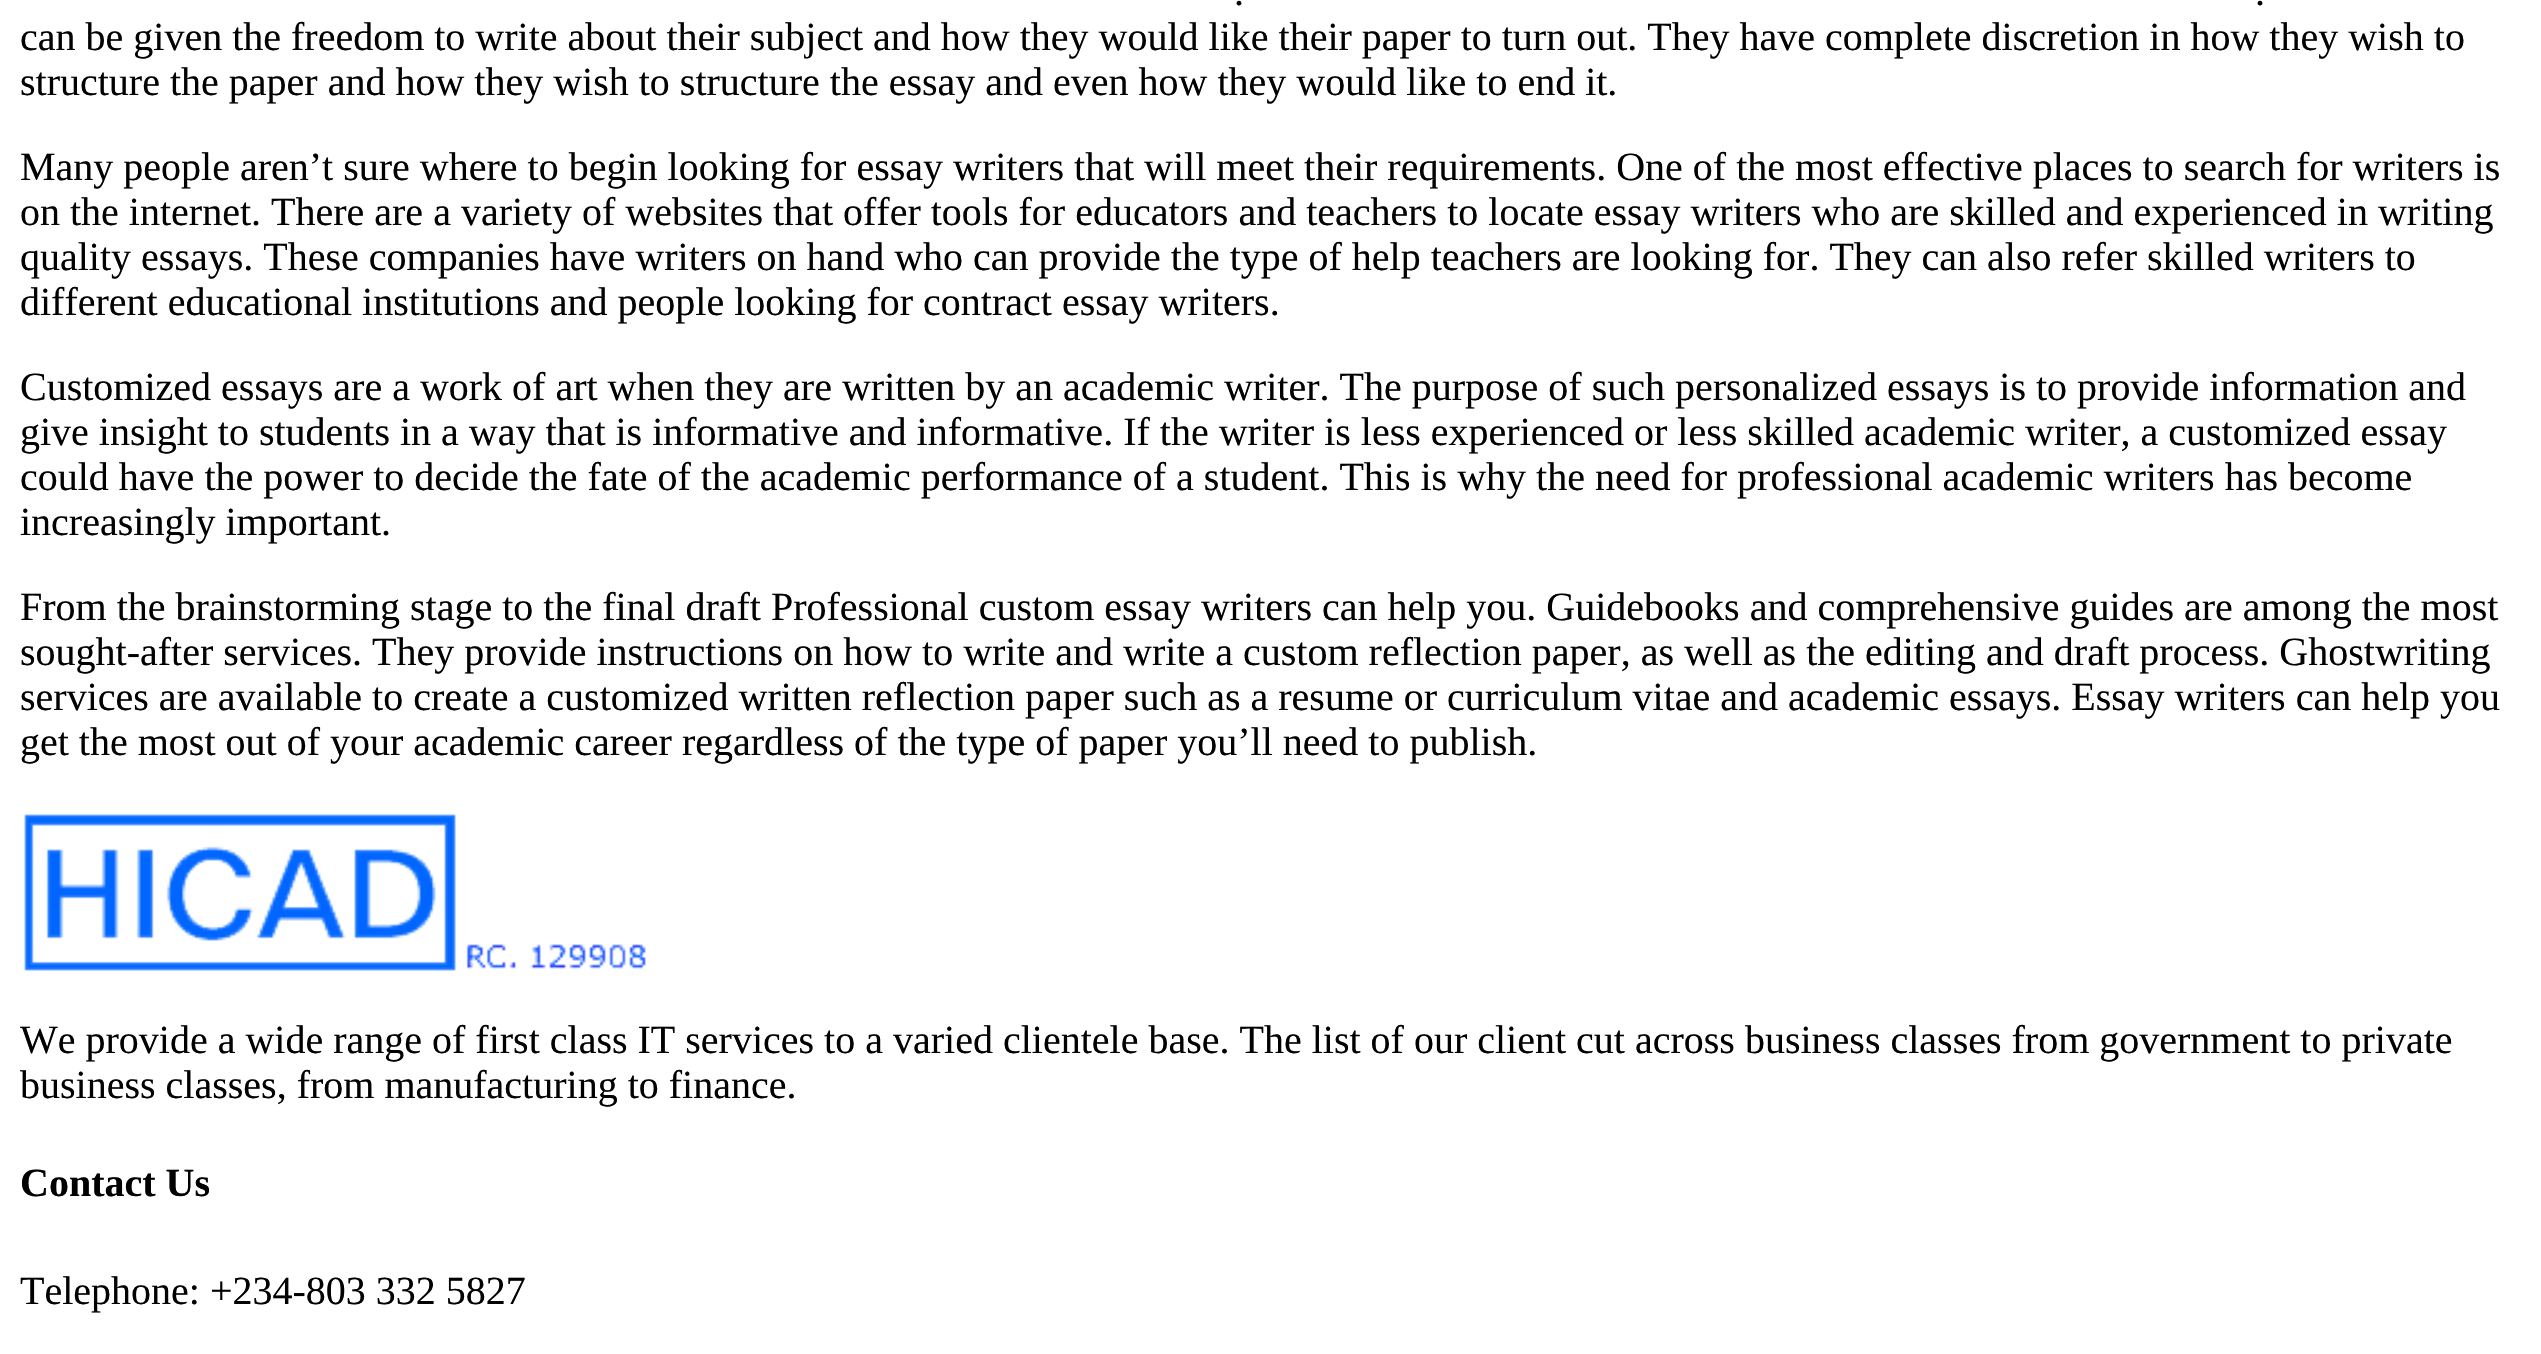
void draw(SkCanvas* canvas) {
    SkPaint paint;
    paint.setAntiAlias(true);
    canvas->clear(0xFFFFFFFF);
    SkFont font1(fontMgr->matchFamilyStyle("Liberation Serif", SkFontStyle::Normal()), 40);
    font1.setSubpixel(true);
    paint.setColor(0xFF000000);
    canvas->drawString(".", 1234, 5, font1, paint);
    canvas->drawString(".", 2255, 5, font1, paint);
    canvas->drawString("can be given the freedom to write about their subject and how they would like their paper to turn out. They have complete discretion in how they wish to", 20, 50, font1, paint);
    canvas->drawString("structure the paper and how they wish to structure the essay and even how they would like to end it.", 20, 95, font1, paint);
    canvas->drawString("Many people aren’t sure where to begin looking for essay writers that will meet their requirements. One of the most effective places to search for writers is", 20, 180, font1, paint);
    canvas->drawString("on the internet. There are a variety of websites that offer tools for educators and teachers to locate essay writers who are skilled and experienced in writing", 20, 225, font1, paint);
    canvas->drawString("quality essays. These companies have writers on hand who can provide the type of help teachers are looking for. They can also refer skilled writers to", 20, 270, font1, paint);
    canvas->drawString("different educational institutions and people looking for contract essay writers.", 20, 315, font1, paint);
    canvas->drawString("Customized essays are a work of art when they are written by an academic writer. The purpose of such personalized essays is to provide information and", 20, 400, font1, paint);
    canvas->drawString("give insight to students in a way that is informative and informative. If the writer is less experienced or less skilled academic writer, a customized essay", 20, 445, font1, paint);
    canvas->drawString("could have the power to decide the fate of the academic performance of a student. This is why the need for professional academic writers has become", 20, 490, font1, paint);
    canvas->drawString("increasingly important.", 20, 535, font1, paint);
    canvas->drawString("From the brainstorming stage to the final draft Professional custom essay writers can help you. Guidebooks and comprehensive guides are among the most", 20, 620, font1, paint);
    canvas->drawString("sought-after services. They provide instructions on how to write and write a custom reflection paper, as well as the editing and draft process. Ghostwriting", 20, 665, font1, paint);
    canvas->drawString("services are available to create a customized written reflection paper such as a resume or curriculum vitae and academic essays. Essay writers can help you", 20, 710, font1, paint);
    canvas->drawString("get the most out of your academic career regardless of the type of paper you’ll need to publish.", 20, 755, font1, paint);
    canvas->drawImageRect(SkImages::DeferredFromEncodedData(SkData::MakeFromFileName("img1.png")), SkRect::MakeXYWH(24, 814, 622, 157), SkSamplingOptions());
    canvas->drawString("We provide a wide range of first class IT services to a varied clientele base. The list of our client cut across business classes from government to private", 20, 1053, font1, paint);
    canvas->drawString("business classes, from manufacturing to finance.", 20, 1098, font1, paint);
    SkFont font2(fontMgr->matchFamilyStyle("Liberation Serif", SkFontStyle::Bold()), 40);
    font2.setSubpixel(true);
    canvas->drawString("Contact Us", 20, 1196, font2, paint);
    canvas->drawString("Telephone: +234-803 332 5827", 20, 1304, font1, paint);
}
